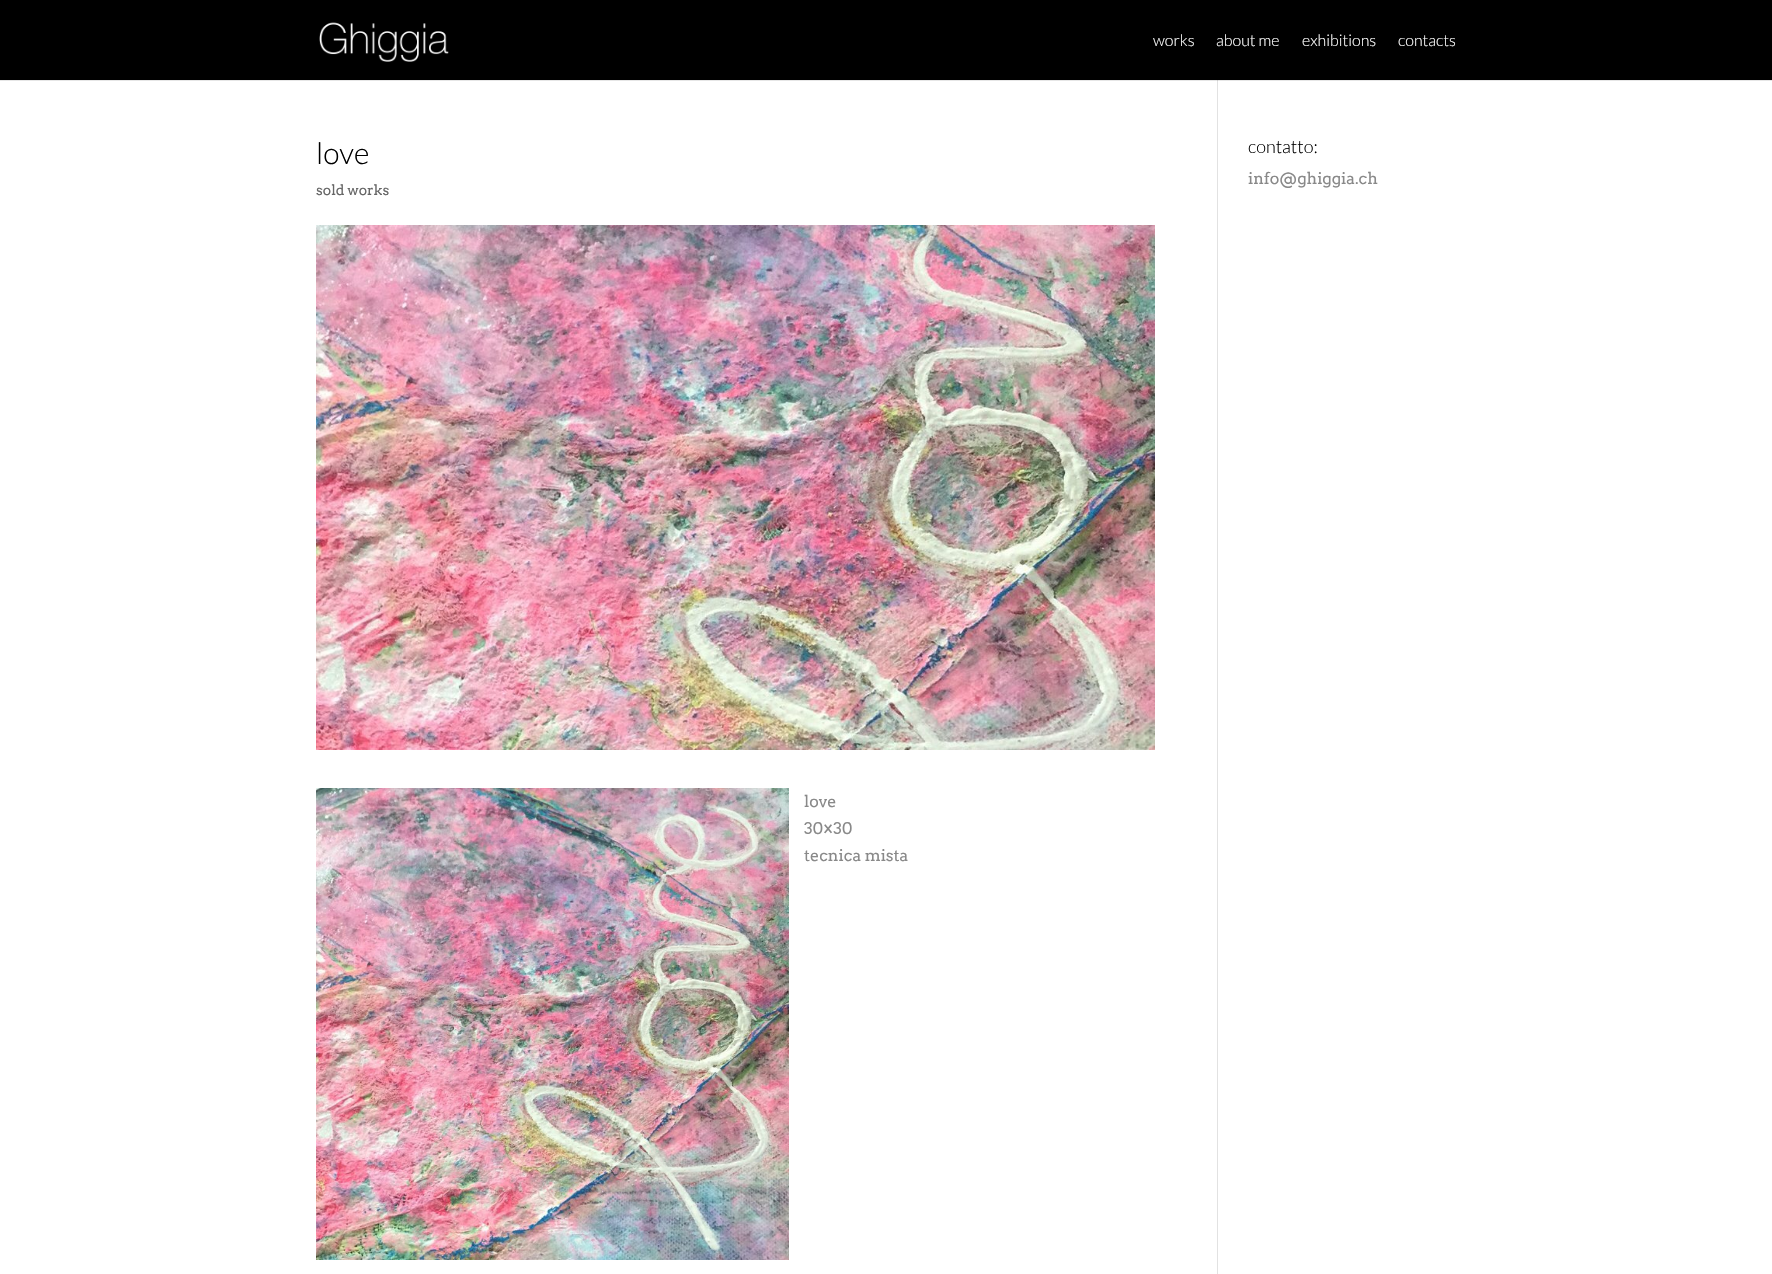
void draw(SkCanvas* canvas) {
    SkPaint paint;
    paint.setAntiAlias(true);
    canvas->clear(0xFFFFFFFF);
    paint.setColor(0xFFE6E6E6);
    canvas->drawRect(SkRect::MakeXYWH(0, 80, 1772, 1), paint);
    paint.setColor(0xFFE2E2E2);
    canvas->drawRect(SkRect::MakeXYWH(1217, 79, 1, 1195), paint);
    paint.setColor(0xFF000000);
    canvas->drawRect(SkRect::MakeXYWH(0, 0, 1772, 80), paint);
    canvas->drawImageRect(SkImages::DeferredFromEncodedData(SkData::MakeFromFileName("img1.png")), SkRect::MakeXYWH(319, 22, 130, 40), SkSamplingOptions());
    SkFont font1(fontMgr->matchFamilyStyle("Lato", SkFontStyle(300, SkFontStyle::kNormal_Width, SkFontStyle::kUpright_Slant)), 16);
    font1.setSubpixel(true);
    paint.setColor(0xFFFFFFFF);
    canvas->drawString("works", 1153, 46, font1, paint);
    canvas->drawString("about me", 1216, 46, font1, paint);
    canvas->drawString("exhibitions", 1302, 46, font1, paint);
    canvas->drawString("contacts", 1398, 46, font1, paint);
    paint.setColor(0xFFCBCBCB);
    canvas->drawRect(SkRect::MakeXYWH(1217, 80, 1, 1), paint);
    SkFont font2(fontMgr->matchFamilyStyle("Lato", SkFontStyle(300, SkFontStyle::kNormal_Width, SkFontStyle::kUpright_Slant)), 30);
    font2.setSubpixel(true);
    paint.setColor(0xFF000000);
    canvas->drawString("love", 316, 164, font2, paint);
    SkFont font3(fontMgr->matchFamilyStyle("Arvo", SkFontStyle::Normal()), 14);
    font3.setSubpixel(true);
    paint.setColor(0xFF666666);
    canvas->drawString("sold works", 316, 195, font3, paint);
    canvas->drawImageRect(SkImages::DeferredFromEncodedData(SkData::MakeFromFileName("img2.png")), SkRect::MakeXYWH(316, 225, 839, 525), SkSamplingOptions());
    canvas->drawImageRect(SkImages::DeferredFromEncodedData(SkData::MakeFromFileName("img3.png")), SkRect::MakeXYWH(316, 788, 473, 472), SkSamplingOptions());
    SkFont font4(fontMgr->matchFamilyStyle("Arvo", SkFontStyle::Normal()), 16);
    font4.setSubpixel(true);
    paint.setColor(0xFF898989);
    canvas->drawString("love", 804, 807, font4, paint);
    canvas->drawString("30×30", 804, 834, font4, paint);
    canvas->drawString("tecnica mista", 804, 861, font4, paint);
    SkFont font5(fontMgr->matchFamilyStyle("Lato", SkFontStyle(300, SkFontStyle::kNormal_Width, SkFontStyle::kUpright_Slant)), 18);
    font5.setSubpixel(true);
    paint.setColor(0xFF000000);
    canvas->drawString("contatto:", 1248, 153, font5, paint);
    paint.setColor(0xFF898989);
    canvas->drawString("info@ghiggia.ch", 1248, 184, font4, paint);
}
